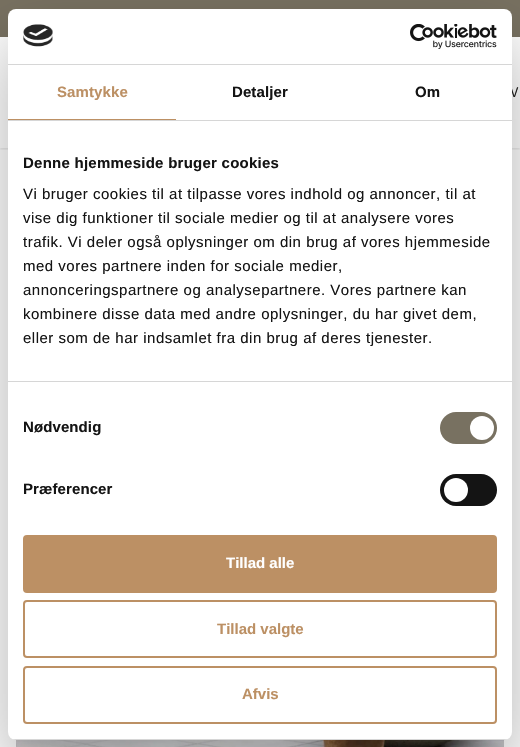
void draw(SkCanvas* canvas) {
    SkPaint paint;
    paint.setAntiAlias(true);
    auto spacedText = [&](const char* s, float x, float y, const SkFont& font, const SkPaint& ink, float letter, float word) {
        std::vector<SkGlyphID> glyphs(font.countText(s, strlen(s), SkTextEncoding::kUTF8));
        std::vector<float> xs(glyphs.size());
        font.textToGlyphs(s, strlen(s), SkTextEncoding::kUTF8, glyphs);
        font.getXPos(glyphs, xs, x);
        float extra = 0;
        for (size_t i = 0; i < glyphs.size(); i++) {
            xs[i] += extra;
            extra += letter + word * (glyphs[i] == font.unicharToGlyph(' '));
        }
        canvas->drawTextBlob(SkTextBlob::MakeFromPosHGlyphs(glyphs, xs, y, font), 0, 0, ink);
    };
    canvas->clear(0xFFFFFFFF);
    canvas->save();
    canvas->clipRect(SkRect::MakeXYWH(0, 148, 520, 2));
    paint.setColor(0x1F000000);
    paint.setMaskFilter(SkMaskFilter::MakeBlur(kNormal_SkBlurStyle, 1.5f));
    canvas->drawRect(SkRect::MakeXYWH(0, 1, 520, 148), paint);
    paint.setMaskFilter(nullptr);
    canvas->restore();
    paint.setColor(0xFF787161);
    canvas->drawRect(SkRect::MakeXYWH(0, 0, 520, 37), paint);
    canvas->drawImageRect(SkImages::DeferredFromEncodedData(SkData::MakeFromFileName("img3.png")), SkRect::MakeXYWH(16, 740, 488, 7), SkSamplingOptions());
    paint.setColor(0x4D000000);
    paint.setMaskFilter(SkMaskFilter::MakeBlur(kNormal_SkBlurStyle, 34));
    canvas->drawRoundRect(SkRect::MakeXYWH(8, 41, 504, 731), 8, 8, paint);
    paint.setMaskFilter(nullptr);
    SkFont font1(fontMgr->matchFamilyStyle("IBM Plex Sans Arabic", SkFontStyle::Normal()), 14);
    font1.setSubpixel(true);
    paint.setColor(0xFF1E1E1C);
    canvas->drawString("V", 510, 97, font1, paint);
    paint.setColor(0xFFFFFFFF);
    canvas->drawRoundRect(SkRect::MakeXYWH(8, 9, 504, 731), 8, 8, paint);
    paint.setColor(0xFFD6D6D6);
    canvas->drawRect(SkRect::MakeXYWH(8, 64, 504, 1), paint);
    canvas->drawImageRect(SkImages::DeferredFromEncodedData(SkData::MakeFromFileName("img1.png")), SkRect::MakeXYWH(23, 24, 30, 23), SkSamplingOptions());
    canvas->drawImageRect(SkImages::DeferredFromEncodedData(SkData::MakeFromFileName("img2.png")), SkRect::MakeXYWH(410, 24, 87, 25), SkSamplingOptions());
    canvas->drawRect(SkRect::MakeXYWH(8, 120, 504, 1), paint);
    paint.setColor(0xFFBC9064);
    canvas->drawRect(SkRect::MakeXYWH(8, 119, 168, 1), paint);
    SkFont font2(fontMgr->matchFamilyStyle("Liberation Sans", SkFontStyle::Bold()), 15);
    font2.setSubpixel(true);
    spacedText("Samtykke", 57, 97, font2, paint, 0.1f, 0);
    paint.setColor(0xFF141414);
    spacedText("Detaljer", 232, 97, font2, paint, 0.1f, 0);
    spacedText("Om", 415, 97, font2, paint, 0.1f, 0);
    paint.setColor(0xFFD6D6D6);
    canvas->drawRect(SkRect::MakeXYWH(8, 381, 504, 1), paint);
    paint.setColor(0xFF141414);
    spacedText("Denne hjemmeside bruger cookies", 23, 168, font2, paint, 0.25f, 0);
    SkFont font3(fontMgr->matchFamilyStyle("Liberation Sans", SkFontStyle::Normal()), 15);
    font3.setSubpixel(true);
    spacedText("Vi bruger cookies til at tilpasse vores indhold og annoncer, til at", 23, 199, font3, paint, 0.5f, 0);
    spacedText("vise dig funktioner til sociale medier og til at analysere vores", 23, 223, font3, paint, 0.5f, 0);
    spacedText("trafik. Vi deler også oplysninger om din brug af vores hjemmeside", 23, 247, font3, paint, 0.5f, 0);
    spacedText("med vores partnere inden for sociale medier,", 23, 271, font3, paint, 0.5f, 0);
    spacedText("annonceringspartnere og analysepartnere. Vores partnere kan", 23, 295, font3, paint, 0.5f, 0);
    spacedText("kombinere disse data med andre oplysninger, du har givet dem,", 23, 319, font3, paint, 0.5f, 0);
    spacedText("eller som de har indsamlet fra din brug af deres tjenester.", 23, 343, font3, paint, 0.5f, 0);
    spacedText("Nødvendig", 23, 432, font2, paint, 0.1f, 0);
    paint.setColor(0xFF787161);
    canvas->drawRoundRect(SkRect::MakeXYWH(440, 412, 57, 32), 16, 16, paint);
    paint.setColor(0xFFFFFFFF);
    canvas->drawCircle(482, 428, 12, paint);
    paint.setColor(0xFF141414);
    spacedText("Præferencer", 23, 494, font2, paint, 0.1f, 0);
    canvas->drawRoundRect(SkRect::MakeXYWH(440, 474, 57, 32), 16, 16, paint);
    paint.setColor(0xFFFFFFFF);
    canvas->drawCircle(456, 490, 12, paint);
    canvas->save();
    canvas->clipPath(SkPathBuilder().moveTo(16, 9).lineTo(504, 9).cubicTo(508.5f, 9, 512, 12.5f, 512, 17).lineTo(512, 732).cubicTo(512, 736.5f, 508.5f, 740, 504, 740).lineTo(16, 740).cubicTo(11.5f, 740, 8, 736.5f, 8, 732).lineTo(8, 17).cubicTo(8, 12.5f, 11.5f, 9, 16, 9).close().detach(), true);
    paint.setColor(0xFFD6D6D6);
    canvas->drawRect(SkRect::MakeXYWH(8, 739, 504, 1), paint);
    canvas->restore();
    paint.setColor(0xFFBC9064);
    canvas->drawRoundRect(SkRect::MakeXYWH(24, 536, 472, 56), 3, 3, paint);
    paint.setStyle(SkPaint::kStroke_Style);
    paint.setStrokeWidth(2);
    canvas->drawRoundRect(SkRect::MakeXYWH(24, 536, 472, 56), 3, 3, paint);
    paint.setStyle(SkPaint::kFill_Style);
    paint.setColor(0xFFFFFFFF);
    canvas->drawString("Tillad alle", 226, 568, font2, paint);
    paint.setStyle(SkPaint::kStroke_Style);
    paint.setColor(0xFFBC9064);
    canvas->drawRoundRect(SkRect::MakeXYWH(24, 601, 472, 56), 3, 3, paint);
    paint.setStyle(SkPaint::kFill_Style);
    canvas->drawString("Tillad valgte", 217, 634, font2, paint);
    paint.setStyle(SkPaint::kStroke_Style);
    canvas->drawRoundRect(SkRect::MakeXYWH(24, 667, 472, 56), 3, 3, paint);
    paint.setStyle(SkPaint::kFill_Style);
    canvas->drawString("Afvis", 242, 699, font2, paint);
}
